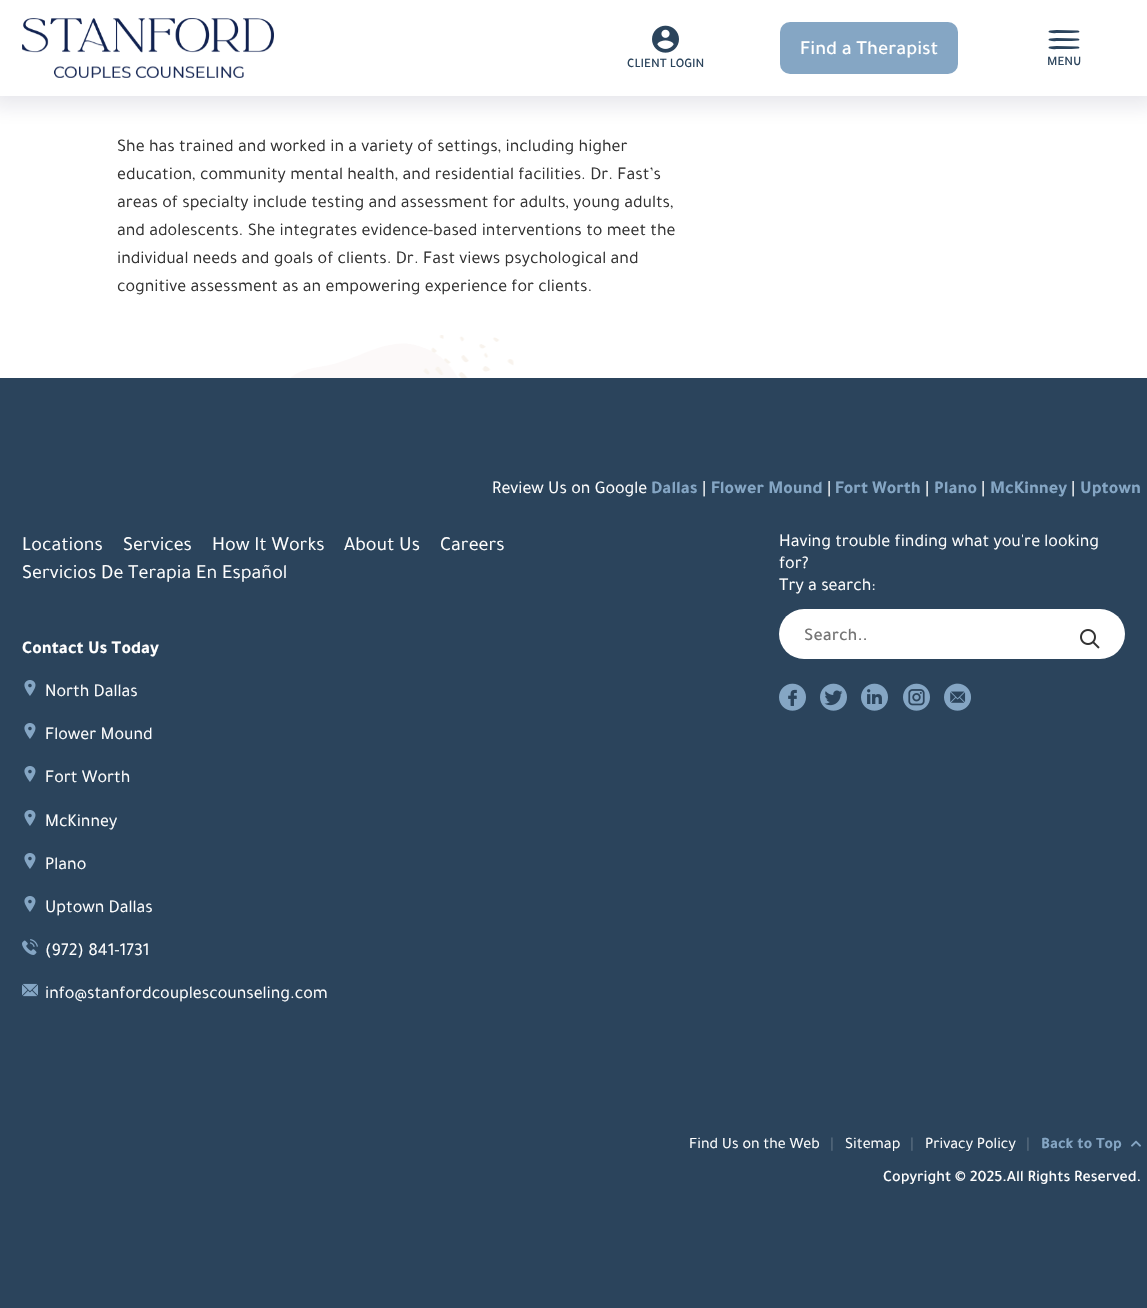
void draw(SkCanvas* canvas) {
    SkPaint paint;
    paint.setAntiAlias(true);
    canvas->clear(0xFFFFFFFF);
    paint.setColor(0x1A141442);
    paint.setMaskFilter(SkMaskFilter::MakeBlur(kNormal_SkBlurStyle, 10));
    canvas->drawRect(SkRect::MakeXYWH(-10, -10, 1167, 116), paint);
    paint.setMaskFilter(nullptr);
    paint.setColor(0xFFFFFFFF);
    canvas->drawRect(SkRect::MakeXYWH(0, 0, 1147, 96), paint);
    canvas->drawImageRect(SkImages::DeferredFromEncodedData(SkData::MakeFromFileName("img1.png")), SkRect::MakeXYWH(22, 18, 252, 60), SkSamplingOptions());
    paint.setColor(0xFF85A6C4);
    canvas->drawRoundRect(SkRect::MakeXYWH(780, 22, 178, 52), 10, 10, paint);
    SkFont font1(fontMgr->matchFamilyStyle("Tajawal", SkFontStyle(500, SkFontStyle::kNormal_Width, SkFontStyle::kUpright_Slant)), 20);
    font1.setSubpixel(true);
    paint.setColor(0xFFFFFFFF);
    canvas->drawString("Find a Therapist", 800, 54, font1, paint);
    canvas->drawImageRect(SkImages::DeferredFromEncodedData(SkData::MakeFromFileName("img2.png")), SkRect::MakeXYWH(652, 25, 27, 28), SkSamplingOptions());
    SkFont font2(fontMgr->matchFamilyStyle("Tajawal", SkFontStyle(500, SkFontStyle::kNormal_Width, SkFontStyle::kUpright_Slant)), 13);
    font2.setSubpixel(true);
    paint.setColor(0xFF2B445C);
    canvas->drawString("CLIENT LOGIN", 627, 67, font2, paint);
    canvas->drawPath(SkPathBuilder().moveTo(1056.5f, 30).lineTo(1077.5f, 30.5f).cubicTo(1079, 30.5f, 1080.5f, 32, 1078.5f, 32.5f).lineTo(1071.5f, 33).lineTo(1059, 33).cubicTo(1056, 33, 1052.5f, 33.5f, 1049.5f, 32.5f).cubicTo(1047.5f, 32, 1049, 30.5f, 1050.5f, 30.5f).close().moveTo(1056.5f, 38).lineTo(1077.5f, 38.5f).cubicTo(1079, 38.5f, 1080.5f, 40, 1078.5f, 40.5f).lineTo(1071.5f, 41).lineTo(1059, 41).cubicTo(1056, 41, 1052.5f, 41.5f, 1049.5f, 40.5f).cubicTo(1047.5f, 40, 1049, 38.5f, 1050.5f, 38.5f).close().moveTo(1056.5f, 46).lineTo(1077.5f, 46.5f).cubicTo(1079, 46.5f, 1080.5f, 48, 1078.5f, 48.5f).lineTo(1071.5f, 49).lineTo(1059, 49).cubicTo(1056, 49, 1052.5f, 49.5f, 1049.5f, 48.5f).cubicTo(1047.5f, 48, 1049, 46.5f, 1050.5f, 46.5f).close().detach(), paint);
    canvas->drawString("MENU", 1047, 65, font2, paint);
    SkFont font3(fontMgr->matchFamilyStyle("Tajawal", SkFontStyle::Normal()), 18);
    font3.setSubpixel(true);
    paint.setColor(0xFF333333);
    canvas->drawString("She has trained and worked in a variety of settings, including higher", 117, 151, font3, paint);
    canvas->drawString("education, community mental health, and residential facilities. Dr. Fast’s", 117, 179, font3, paint);
    canvas->drawString("areas of specialty include testing and assessment for adults, young adults,", 117, 207, font3, paint);
    canvas->drawString("and adolescents. She integrates evidence-based interventions to meet the", 117, 235, font3, paint);
    canvas->drawString("individual needs and goals of clients. Dr. Fast views psychological and", 117, 263, font3, paint);
    canvas->drawString("cognitive assessment as an empowering experience for clients.", 117, 291, font3, paint);
    canvas->drawImageRect(SkImages::DeferredFromEncodedData(SkData::MakeFromFileName("img3.png")), SkRect::MakeXYWH(291, 335, 223, 43), SkSamplingOptions());
    paint.setColor(0xFF2B445C);
    canvas->drawRect(SkRect::MakeXYWH(0, 378, 1147, 930), paint);
    paint.setColor(0xFFFFFFFF);
    canvas->drawString("Review Us on Google", 492, 493, font3, paint);
    SkFont font4(fontMgr->matchFamilyStyle("Tajawal", SkFontStyle::Bold()), 18);
    font4.setSubpixel(true);
    paint.setColor(0xFF85A6C4);
    canvas->drawString("Dallas", 651, 493, font4, paint);
    paint.setColor(0xFFFFFFFF);
    canvas->drawString("|", 702, 493, font3, paint);
    paint.setColor(0xFF85A6C4);
    canvas->drawString("Flower Mound", 711, 493, font4, paint);
    paint.setColor(0xFFFFFFFF);
    canvas->drawString("|", 827, 493, font3, paint);
    paint.setColor(0xFF85A6C4);
    canvas->drawString("Fort Worth", 835, 493, font4, paint);
    paint.setColor(0xFFFFFFFF);
    canvas->drawString("|", 925, 493, font3, paint);
    paint.setColor(0xFF85A6C4);
    canvas->drawString("Plano", 934, 493, font4, paint);
    paint.setColor(0xFFFFFFFF);
    canvas->drawString("|", 981, 493, font3, paint);
    paint.setColor(0xFF85A6C4);
    canvas->drawString("McKinney", 990, 493, font4, paint);
    paint.setColor(0xFFFFFFFF);
    canvas->drawString("|", 1071, 493, font3, paint);
    paint.setColor(0xFF85A6C4);
    canvas->drawString("Uptown", 1080, 493, font4, paint);
    SkFont font5(fontMgr->matchFamilyStyle("Tajawal", SkFontStyle::Normal()), 20);
    font5.setSubpixel(true);
    paint.setColor(0xFFFFFFFF);
    canvas->drawString("Locations", 22, 550, font5, paint);
    canvas->drawString("Services", 123, 550, font5, paint);
    canvas->drawString("How It Works", 212, 550, font5, paint);
    canvas->drawString("About Us", 344, 550, font5, paint);
    canvas->drawString("Careers", 440, 550, font5, paint);
    canvas->drawString("Servicios De Terapia En Español", 22, 578, font5, paint);
    canvas->drawString("Contact Us Today", 22, 653, font4, paint);
    canvas->drawImageRect(SkImages::DeferredFromEncodedData(SkData::MakeFromFileName("img4.png")), SkRect::MakeXYWH(24, 680, 12, 16), SkSamplingOptions());
    canvas->drawString("North Dallas", 45, 696, font3, paint);
    canvas->drawImageRect(SkImages::DeferredFromEncodedData(SkData::MakeFromFileName("img4.png")), SkRect::MakeXYWH(24, 723, 12, 16), SkSamplingOptions());
    canvas->drawString("Flower Mound", 45, 739, font3, paint);
    canvas->drawImageRect(SkImages::DeferredFromEncodedData(SkData::MakeFromFileName("img4.png")), SkRect::MakeXYWH(24, 766, 12, 16), SkSamplingOptions());
    canvas->drawString("Fort Worth", 45, 782, font3, paint);
    canvas->drawImageRect(SkImages::DeferredFromEncodedData(SkData::MakeFromFileName("img4.png")), SkRect::MakeXYWH(24, 810, 12, 16), SkSamplingOptions());
    canvas->drawString("McKinney", 45, 826, font3, paint);
    canvas->drawImageRect(SkImages::DeferredFromEncodedData(SkData::MakeFromFileName("img4.png")), SkRect::MakeXYWH(24, 853, 12, 16), SkSamplingOptions());
    canvas->drawString("Plano", 45, 869, font3, paint);
    canvas->drawImageRect(SkImages::DeferredFromEncodedData(SkData::MakeFromFileName("img4.png")), SkRect::MakeXYWH(24, 896, 12, 16), SkSamplingOptions());
    canvas->drawString("Uptown Dallas", 45, 912, font3, paint);
    canvas->drawImageRect(SkImages::DeferredFromEncodedData(SkData::MakeFromFileName("img5.png")), SkRect::MakeXYWH(22, 939, 16, 16), SkSamplingOptions());
    canvas->drawString("(972) 841-1731", 45, 955, font3, paint);
    canvas->drawImageRect(SkImages::DeferredFromEncodedData(SkData::MakeFromFileName("img6.png")), SkRect::MakeXYWH(22, 983, 16, 14), SkSamplingOptions());
    canvas->drawString("info@stanfordcouplescounseling.com", 45, 998, font3, paint);
    canvas->drawString("Having trouble finding what you're looking", 779, 546, font3, paint);
    canvas->drawString("for?", 779, 568, font3, paint);
    canvas->drawString("Try a search:", 779, 590, font3, paint);
    canvas->drawRoundRect(SkRect::MakeXYWH(779, 609, 346, 50), 25, 25, paint);
    SkFont font6(fontMgr->matchFamilyStyle("Tajawal", SkFontStyle(500, SkFontStyle::kNormal_Width, SkFontStyle::kUpright_Slant)), 18);
    font6.setSubpixel(true);
    paint.setColor(0xFF757575);
    canvas->drawString("Search..", 804, 640, font6, paint);
    canvas->drawImageRect(SkImages::DeferredFromEncodedData(SkData::MakeFromFileName("img7.png")), SkRect::MakeXYWH(1080, 629, 20, 20), SkSamplingOptions());
    canvas->drawImageRect(SkImages::DeferredFromEncodedData(SkData::MakeFromFileName("img8.png")), SkRect::MakeXYWH(779, 683, 27, 28), SkSamplingOptions());
    canvas->drawImageRect(SkImages::DeferredFromEncodedData(SkData::MakeFromFileName("img9.png")), SkRect::MakeXYWH(820, 683, 27, 28), SkSamplingOptions());
    canvas->drawImageRect(SkImages::DeferredFromEncodedData(SkData::MakeFromFileName("img10.png")), SkRect::MakeXYWH(861, 683, 27, 28), SkSamplingOptions());
    canvas->drawImageRect(SkImages::DeferredFromEncodedData(SkData::MakeFromFileName("img11.png")), SkRect::MakeXYWH(903, 683, 27, 28), SkSamplingOptions());
    canvas->drawImageRect(SkImages::DeferredFromEncodedData(SkData::MakeFromFileName("img12.png")), SkRect::MakeXYWH(944, 683, 27, 28), SkSamplingOptions());
    SkFont font7(fontMgr->matchFamilyStyle("Tajawal", SkFontStyle::Normal()), 16);
    font7.setSubpixel(true);
    paint.setColor(0xFFFFFFFF);
    canvas->drawString("Find Us on the Web", 689, 1148, font7, paint);
    paint.setColor(0xFF607385);
    canvas->drawString("|", 830, 1148, font7, paint);
    paint.setColor(0xFFFFFFFF);
    canvas->drawString("Sitemap", 845, 1148, font7, paint);
    paint.setColor(0xFF607385);
    canvas->drawString("|", 910, 1148, font7, paint);
    paint.setColor(0xFFFFFFFF);
    canvas->drawString("Privacy Policy", 925, 1148, font7, paint);
    paint.setColor(0xFF607385);
    canvas->drawString("|", 1026, 1148, font7, paint);
    SkFont font8(fontMgr->matchFamilyStyle("Tajawal", SkFontStyle::Bold()), 16);
    font8.setSubpixel(true);
    paint.setColor(0xFF85A6C4);
    canvas->drawString("Back to Top", 1041, 1148, font8, paint);
    canvas->drawImageRect(SkImages::DeferredFromEncodedData(SkData::MakeFromFileName("img13.png")), SkRect::MakeXYWH(1131, 1140, 10, 7), SkSamplingOptions());
    SkFont font9(fontMgr->matchFamilyStyle("Tajawal", SkFontStyle(500, SkFontStyle::kNormal_Width, SkFontStyle::kUpright_Slant)), 16);
    font9.setSubpixel(true);
    paint.setColor(0xFFFFFFFF);
    canvas->drawString("Copyright © 2025.All Rights Reserved.", 883, 1181, font9, paint);
}
